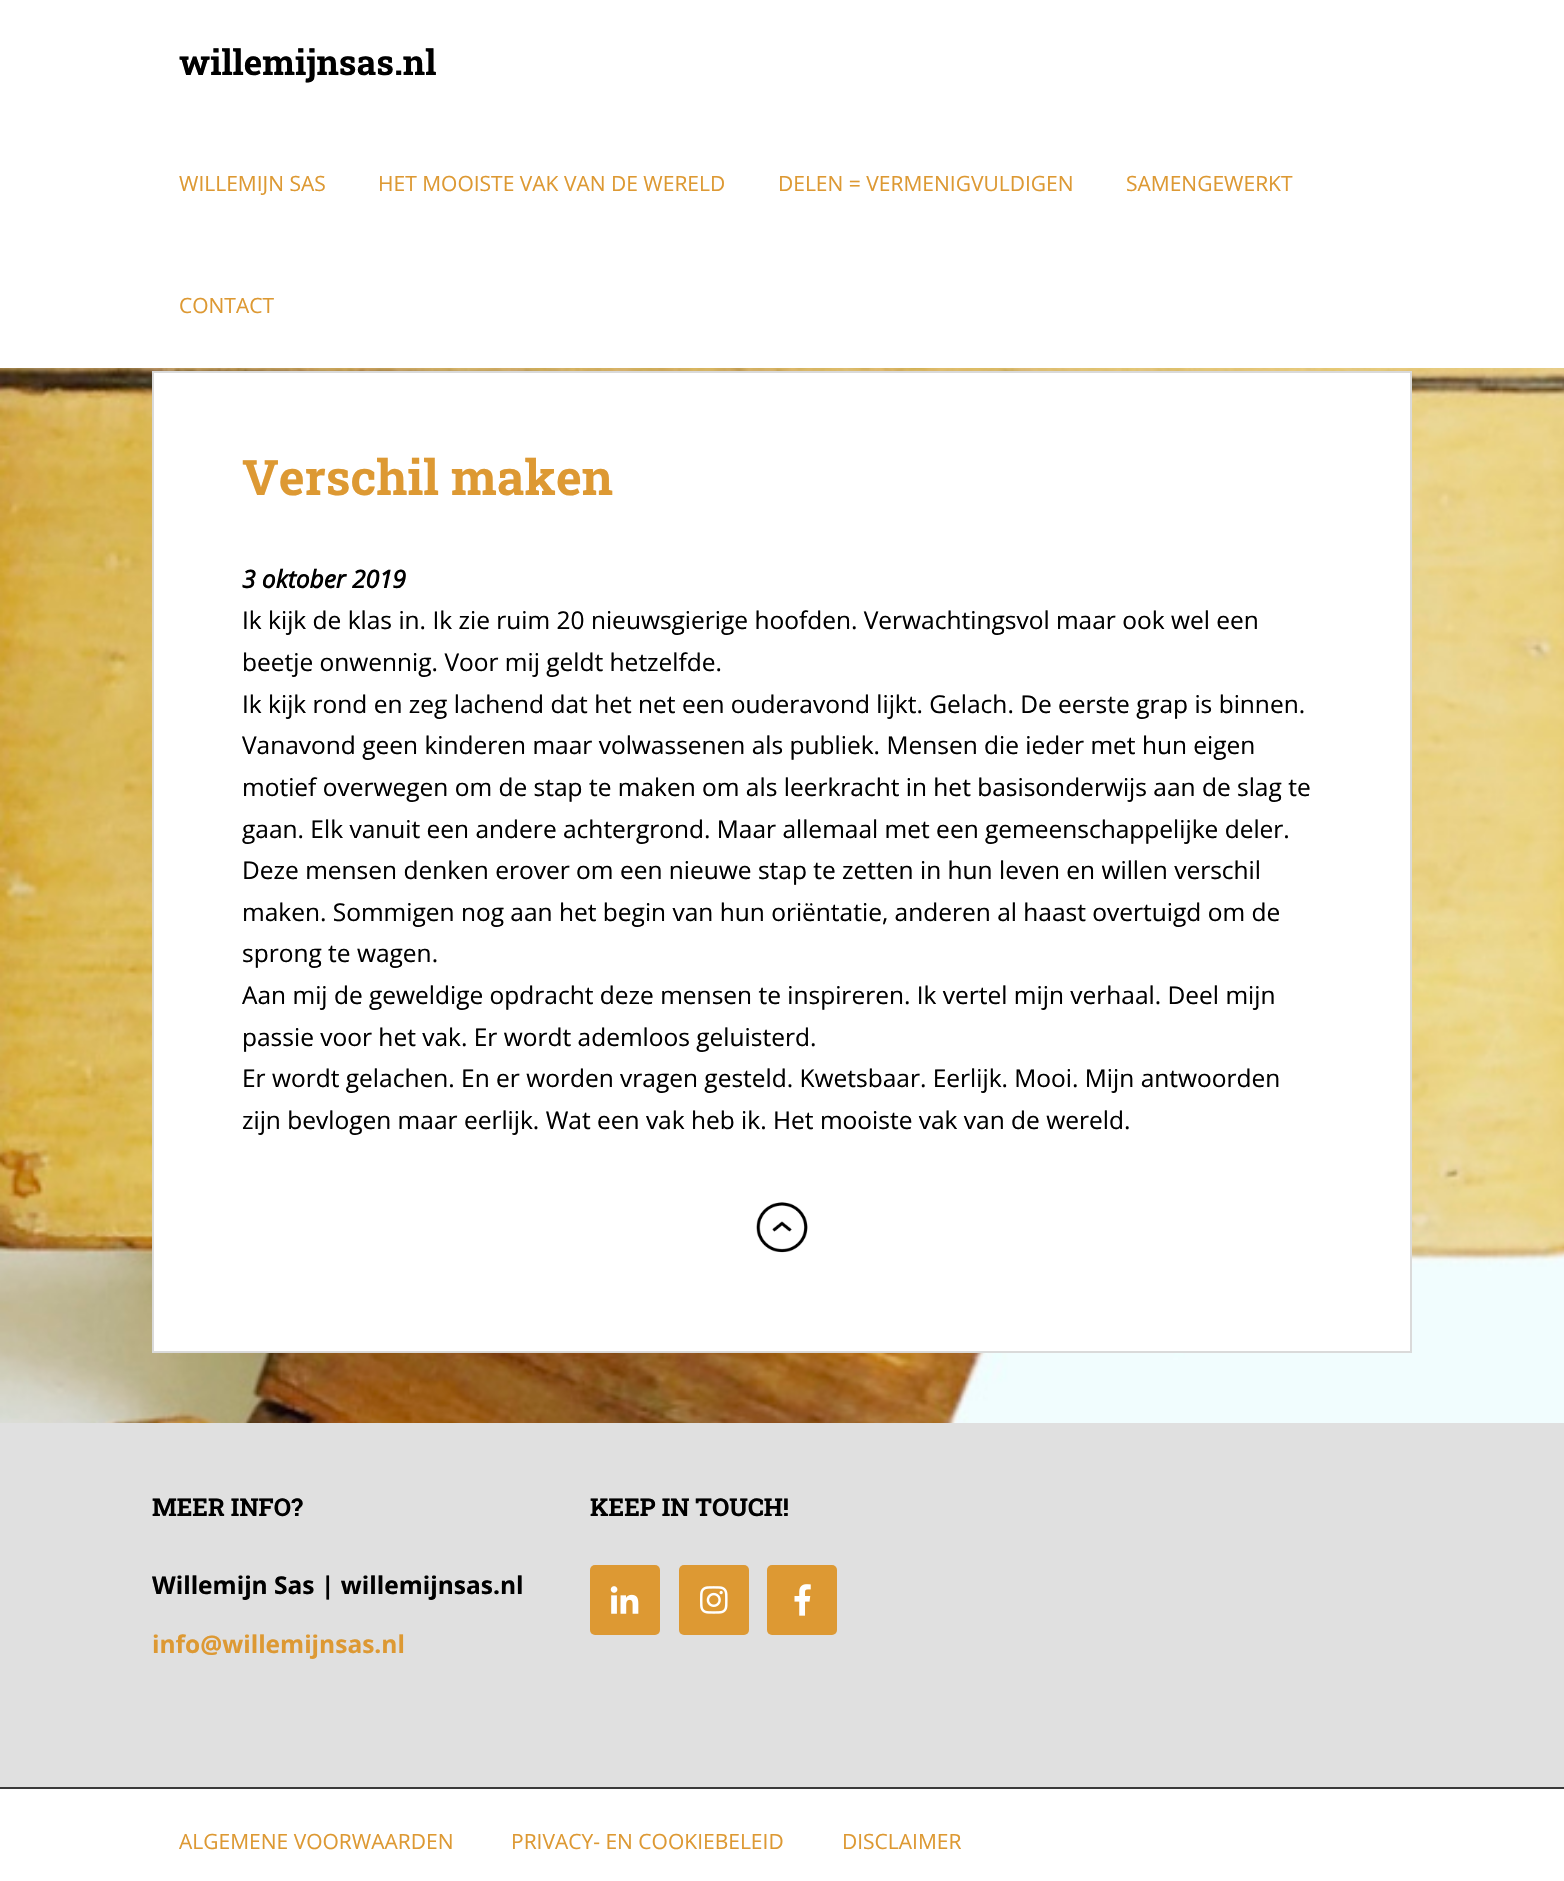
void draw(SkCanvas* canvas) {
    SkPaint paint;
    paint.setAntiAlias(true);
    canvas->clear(0xFFFFFFFF);
    canvas->drawImageRect(SkImages::DeferredFromEncodedData(SkData::MakeFromFileName("img1.png")), SkRect::MakeXYWH(0, 368, 1564, 1055), SkSamplingOptions());
    SkFont font1(fontMgr->matchFamilyStyle("Roboto Slab", SkFontStyle::Bold()), 35);
    font1.setSubpixel(true);
    paint.setColor(0xFF000000);
    canvas->drawString("willemijnsas.nl", 179, 75, font1, paint);
    SkFont font2(fontMgr->matchFamilyStyle("Open Sans", SkFontStyle::Normal()), 21);
    font2.setSubpixel(true);
    paint.setColor(0xFFDD9933);
    canvas->drawString("WILLEMIJN SAS", 179, 191, font2, paint);
    canvas->drawString("HET MOOISTE VAK VAN DE WERELD", 378, 191, font2, paint);
    canvas->drawString("DELEN = VERMENIGVULDIGEN", 778, 191, font2, paint);
    canvas->drawString("SAMENGEWERKT", 1126, 191, font2, paint);
    canvas->drawString("CONTACT", 179, 313, font2, paint);
    paint.setColor(0xFFFFFFFF);
    canvas->drawRect(SkRect::MakeXYWH(153, 372, 1258, 980), paint);
    paint.setStyle(SkPaint::kStroke_Style);
    paint.setStrokeWidth(2);
    paint.setColor(0xFFDADADA);
    canvas->drawRect(SkRect::MakeXYWH(153, 372, 1258, 980), paint);
    SkFont font3(fontMgr->matchFamilyStyle("Roboto Slab", SkFontStyle::Bold()), 49);
    font3.setSubpixel(true);
    paint.setStyle(SkPaint::kFill_Style);
    paint.setColor(0xFFDD9933);
    canvas->drawString("Verschil maken", 242, 495, font3, paint);
    SkFont font4(fontMgr->matchFamilyStyle("Open Sans", SkFontStyle::BoldItalic()), 24.5f);
    font4.setSubpixel(true);
    paint.setColor(0xFF000000);
    canvas->drawString("3 oktober 2019", 242, 588, font4, paint);
    SkFont font5(fontMgr->matchFamilyStyle("Open Sans", SkFontStyle::Normal()), 24.5f);
    font5.setSubpixel(true);
    canvas->drawString("Ik kijk de klas in. Ik zie ruim 20 nieuwsgierige hoofden. Verwachtingsvol maar ook wel een", 242, 629, font5, paint);
    canvas->drawString("beetje onwennig. Voor mij geldt hetzelfde.", 242, 671, font5, paint);
    canvas->drawString("Ik kijk rond en zeg lachend dat het net een ouderavond lijkt. Gelach. De eerste grap is binnen.", 242, 713, font5, paint);
    canvas->drawString("Vanavond geen kinderen maar volwassenen als publiek. Mensen die ieder met hun eigen", 242, 754, font5, paint);
    canvas->drawString("motief overwegen om de stap te maken om als leerkracht in het basisonderwijs aan de slag te", 242, 796, font5, paint);
    canvas->drawString("gaan. Elk vanuit een andere achtergrond. Maar allemaal met een gemeenschappelijke deler.", 242, 838, font5, paint);
    canvas->drawString("Deze mensen denken erover om een nieuwe stap te zetten in hun leven en willen verschil", 242, 879, font5, paint);
    canvas->drawString("maken. Sommigen nog aan het begin van hun oriëntatie, anderen al haast overtuigd om de", 242, 921, font5, paint);
    canvas->drawString("sprong te wagen.", 242, 962, font5, paint);
    canvas->drawString("Aan mij de geweldige opdracht deze mensen te inspireren. Ik vertel mijn verhaal. Deel mijn", 242, 1004, font5, paint);
    canvas->drawString("passie voor het vak. Er wordt ademloos geluisterd.", 242, 1046, font5, paint);
    canvas->drawString("Er wordt gelachen. En er worden vragen gesteld. Kwetsbaar. Eerlijk. Mooi. Mijn antwoorden", 242, 1087, font5, paint);
    canvas->drawString("zijn bevlogen maar eerlijk. Wat een vak heb ik. Het mooiste vak van de wereld.", 242, 1129, font5, paint);
    canvas->drawImageRect(SkImages::DeferredFromEncodedData(SkData::MakeFromFileName("img2.png")), SkRect::MakeXYWH(756, 1202, 52, 51), SkSamplingOptions());
    paint.setColor(0xFFE0E0E0);
    canvas->drawRect(SkRect::MakeXYWH(0, 1423, 1564, 364), paint);
    SkFont font6(fontMgr->matchFamilyStyle("Roboto Slab", SkFontStyle::Bold()), 24.5f);
    font6.setSubpixel(true);
    paint.setColor(0xFF000000);
    canvas->drawString("MEER INFO?", 152, 1516, font6, paint);
    SkFont font7(fontMgr->matchFamilyStyle("Open Sans", SkFontStyle::Bold()), 24.5f);
    font7.setSubpixel(true);
    canvas->drawString("Willemijn Sas | willemijnsas.nl", 152, 1594, font7, paint);
    paint.setColor(0xFFDD9933);
    canvas->drawString("info@willemijnsas.nl", 152, 1653, font7, paint);
    paint.setColor(0xFF000000);
    canvas->drawString("KEEP IN TOUCH!", 590, 1516, font6, paint);
    paint.setColor(0xFFDD9933);
    canvas->drawRoundRect(SkRect::MakeXYWH(590, 1565, 70, 70), 5, 5, paint);
    canvas->drawImageRect(SkImages::DeferredFromEncodedData(SkData::MakeFromFileName("img3.png")), SkRect::MakeXYWH(610, 1586, 29, 28), SkSamplingOptions());
    canvas->drawRoundRect(SkRect::MakeXYWH(679, 1565, 70, 70), 5, 5, paint);
    canvas->drawImageRect(SkImages::DeferredFromEncodedData(SkData::MakeFromFileName("img4.png")), SkRect::MakeXYWH(700, 1586, 28, 28), SkSamplingOptions());
    canvas->drawRoundRect(SkRect::MakeXYWH(767, 1565, 70, 70), 5, 5, paint);
    canvas->drawImageRect(SkImages::DeferredFromEncodedData(SkData::MakeFromFileName("img5.png")), SkRect::MakeXYWH(794, 1584, 17, 32), SkSamplingOptions());
    paint.setColor(0xFF3A3A3A);
    canvas->drawRect(SkRect::MakeXYWH(0, 1787, 1564, 2), paint);
    paint.setColor(0xFFDD9933);
    canvas->drawString("ALGEMENE VOORWAARDEN", 179, 1849, font2, paint);
    canvas->drawString("PRIVACY- EN COOKIEBELEID", 511, 1849, font2, paint);
    canvas->drawString("DISCLAIMER", 842, 1849, font2, paint);
}
